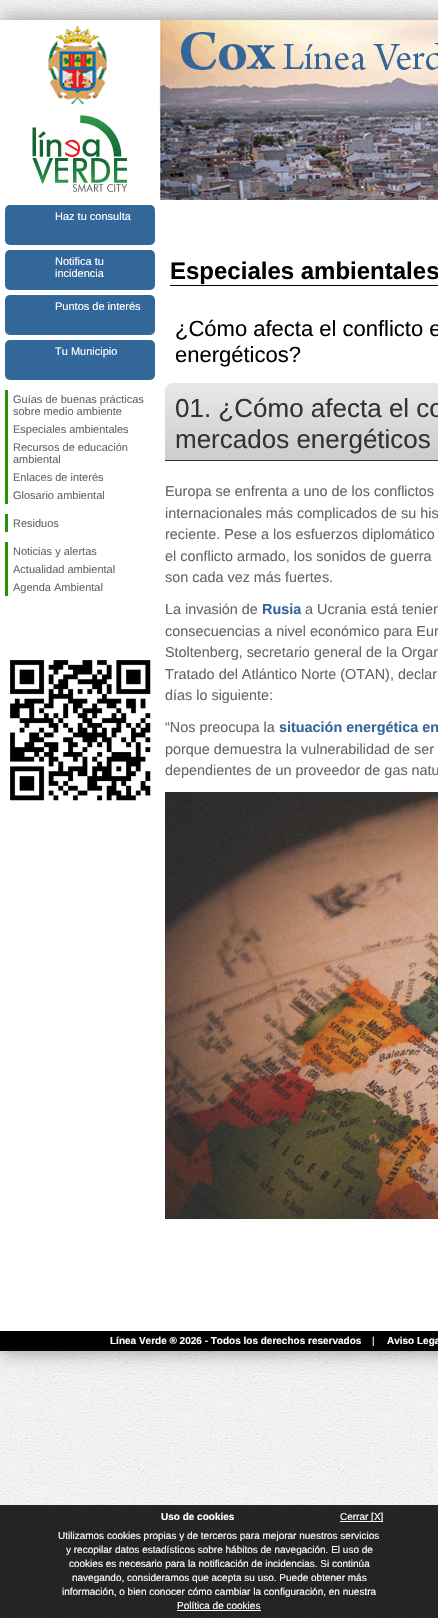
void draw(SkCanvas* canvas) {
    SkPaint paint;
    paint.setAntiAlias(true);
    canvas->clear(0xFFFFFFFF);
    canvas->drawImageRect(SkImages::DeferredFromEncodedData(SkData::MakeFromFileName("img1.png")), SkRect::MakeXYWH(0, 0, 438, 1618), SkSamplingOptions());
    paint.setColor(0x66000000);
    paint.setMaskFilter(SkMaskFilter::MakeBlur(kNormal_SkBlurStyle, 10));
    canvas->drawRect(SkRect::MakeXYWH(0, 20, 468, 1331), paint);
    paint.setMaskFilter(nullptr);
    paint.setColor(0xFFFFFFFF);
    canvas->drawRect(SkRect::MakeXYWH(0, 20, 438, 1311), paint);
    canvas->drawImageRect(SkImages::DeferredFromEncodedData(SkData::MakeFromFileName("img2.png")), SkRect::MakeXYWH(48, 20, 390, 90), SkSamplingOptions());
    canvas->drawImageRect(SkImages::DeferredFromEncodedData(SkData::MakeFromFileName("img3.png")), SkRect::MakeXYWH(32, 115, 96, 77), SkSamplingOptions());
    canvas->drawImageRect(SkImages::DeferredFromEncodedData(SkData::MakeFromFileName("img4.png")), SkRect::MakeXYWH(160, 110, 278, 90), SkSamplingOptions());
    paint.setColor(0xFF336699);
    canvas->drawRoundRect(SkRect::MakeXYWH(5, 205, 150, 40), 5, 5, paint);
    SkFont font1(fontMgr->matchFamilyStyle("Liberation Sans", SkFontStyle::Normal()), 11);
    font1.setSubpixel(true);
    paint.setColor(0xFFFFFFFF);
    canvas->drawString("Haz tu consulta", 55, 220, font1, paint);
    paint.setColor(0xFF336699);
    canvas->drawRoundRect(SkRect::MakeXYWH(5, 250, 150, 40), 5, 5, paint);
    paint.setColor(0xFFFFFFFF);
    canvas->drawString("Notifica tu", 55, 265, font1, paint);
    canvas->drawString("incidencia", 55, 277, font1, paint);
    paint.setColor(0xFF336699);
    canvas->drawRoundRect(SkRect::MakeXYWH(5, 295, 150, 40), 5, 5, paint);
    paint.setColor(0xFFFFFFFF);
    canvas->drawString("Puntos de interés", 55, 310, font1, paint);
    paint.setColor(0xFF336699);
    canvas->drawRoundRect(SkRect::MakeXYWH(5, 340, 150, 40), 5, 5, paint);
    paint.setColor(0xFFFFFFFF);
    canvas->drawString("Tu Municipio", 55, 355, font1, paint);
    paint.setColor(0xFF259603);
    canvas->drawRect(SkRect::MakeXYWH(5, 390, 3, 114), paint);
    paint.setColor(0xFF666666);
    canvas->drawString("Guías de buenas prácticas", 13, 403, font1, paint);
    canvas->drawString("sobre medio ambiente", 13, 415, font1, paint);
    canvas->drawString("Especiales ambientales", 13, 433, font1, paint);
    canvas->drawString("Recursos de educación", 13, 451, font1, paint);
    canvas->drawString("ambiental", 13, 463, font1, paint);
    canvas->drawString("Enlaces de interés", 13, 481, font1, paint);
    canvas->drawString("Glosario ambiental", 13, 499, font1, paint);
    paint.setColor(0xFF259603);
    canvas->drawRect(SkRect::MakeXYWH(5, 514, 3, 18), paint);
    paint.setColor(0xFF666666);
    canvas->drawString("Residuos", 13, 527, font1, paint);
    paint.setColor(0xFF259603);
    canvas->drawRect(SkRect::MakeXYWH(5, 542, 3, 54), paint);
    paint.setColor(0xFF666666);
    canvas->drawString("Noticias y alertas", 13, 555, font1, paint);
    canvas->drawString("Actualidad ambiental", 13, 573, font1, paint);
    canvas->drawString("Agenda Ambiental", 13, 591, font1, paint);
    canvas->drawImageRect(SkImages::DeferredFromEncodedData(SkData::MakeFromFileName("img5.png")), SkRect::MakeXYWH(10, 660, 141, 141), SkSamplingOptions());
    paint.setColor(0xFF010102);
    canvas->drawRect(SkRect::MakeXYWH(170, 285, 268, 1), paint);
    SkFont font2(fontMgr->matchFamilyStyle("Liberation Sans", SkFontStyle::Bold()), 24);
    font2.setSubpixel(true);
    canvas->drawString("Especiales ambientales", 170, 279, font2, paint);
    SkFont font3(fontMgr->matchFamilyStyle("Liberation Sans", SkFontStyle::Normal()), 22);
    font3.setSubpixel(true);
    canvas->drawString("¿Cómo afecta el conflicto e", 175, 336, font3, paint);
    canvas->drawString("energéticos?", 175, 362, font3, paint);
    {
        const SkColor colors[] = {0xFFE8E8E8, 0xFFCCCCCC};
        const float stops[] = {0, 1};
        const SkPoint ends[] = {{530, 383}, {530, 460}};
        paint.setShader(SkGradientShader::MakeLinear(ends, colors, stops, 2, SkTileMode::kClamp));
        paint.setAlpha(255);
    }
    canvas->drawPath(SkPathBuilder().moveTo(173, 383).lineTo(438, 383).cubicTo(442.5f, 383, 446, 386.5f, 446, 391).lineTo(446, 460).lineTo(165, 460).lineTo(165, 391).cubicTo(165, 386.5f, 168.5f, 383, 173, 383).close().detach(), paint);
    paint.setShader(nullptr);
    paint.setColor(0xFF333333);
    canvas->drawRect(SkRect::MakeXYWH(165, 460, 273, 1), paint);
    SkFont font4(fontMgr->matchFamilyStyle("Liberation Sans", SkFontStyle::Normal()), 26);
    font4.setSubpixel(true);
    canvas->drawString("01. ¿Cómo afecta el co", 175, 417, font4, paint);
    canvas->drawString("mercados energéticos", 175, 448, font4, paint);
    SkFont font5(fontMgr->matchFamilyStyle("Liberation Sans", SkFontStyle::Normal()), 14.4f);
    font5.setSubpixel(true);
    paint.setColor(0xFF666666);
    canvas->drawString("Europa se enfrenta a uno de los conflictos", 165, 496, font5, paint);
    canvas->drawString("internacionales más complicados de su his", 165, 518, font5, paint);
    canvas->drawString("reciente. Pese a los esfuerzos diplomático", 165, 539, font5, paint);
    canvas->drawString("el conflicto armado, los sonidos de guerra", 165, 561, font5, paint);
    canvas->drawString("son cada vez más fuertes.", 165, 582, font5, paint);
    canvas->drawString("La invasión de", 165, 614, font5, paint);
    SkFont font6(fontMgr->matchFamilyStyle("Liberation Sans", SkFontStyle::Bold()), 14.4f);
    font6.setSubpixel(true);
    paint.setColor(0xFF336699);
    canvas->drawString("Rusia", 262, 614, font6, paint);
    paint.setColor(0xFF666666);
    canvas->drawString("a Ucrania está tenien", 305, 614, font5, paint);
    canvas->drawString("consecuencias a nivel económico para Eur", 165, 636, font5, paint);
    canvas->drawString("Stoltenberg, secretario general de la Organ", 165, 657, font5, paint);
    canvas->drawString("Tratado del Atlántico Norte (OTAN), declar", 165, 679, font5, paint);
    canvas->drawString("días lo siguiente:", 165, 700, font5, paint);
    canvas->drawString("“Nos preocupa la", 165, 732, font5, paint);
    paint.setColor(0xFF336699);
    canvas->drawString("situación energética en", 279, 732, font6, paint);
    paint.setColor(0xFF666666);
    canvas->drawString("porque demuestra la vulnerabilidad de ser", 165, 754, font5, paint);
    canvas->drawString("dependientes de un proveedor de gas natu", 165, 775, font5, paint);
    canvas->drawImageRect(SkImages::DeferredFromEncodedData(SkData::MakeFromFileName("img6.png")), SkRect::MakeXYWH(165, 792, 273, 427), SkSamplingOptions());
    paint.setColor(0xFF010102);
    canvas->drawRect(SkRect::MakeXYWH(0, 1331, 438, 20), paint);
    SkFont font7(fontMgr->matchFamilyStyle("Liberation Sans", SkFontStyle::Bold()), 10);
    font7.setSubpixel(true);
    paint.setColor(0xFFFFFFFF);
    canvas->drawString("Línea Verde ® 2026 - Todos los derechos reservados", 110, 1344, font7, paint);
    SkFont font8(fontMgr->matchFamilyStyle("Liberation Sans", SkFontStyle::Normal()), 10);
    font8.setSubpixel(true);
    canvas->drawString("|", 372, 1344, font8, paint);
    canvas->drawString("Aviso Lega", 387, 1344, font7, paint);
    paint.setColor(0xD9000000);
    canvas->drawRect(SkRect::MakeXYWH(0, 1505, 438, 113), paint);
    paint.setColor(0xFFFFFFFF);
    canvas->drawString("Uso de cookies", 161, 1520, font7, paint);
    canvas->drawRect(SkRect::MakeXYWH(340, 1521, 43, 1), paint);
    canvas->drawString("Cerrar [X]", 340, 1520, font8, paint);
    canvas->drawString("Utilizamos cookies propias y de terceros para mejorar nuestros servicios", 58, 1539, font8, paint);
    canvas->drawString("y recopilar datos estadísticos sobre hábitos de navegación. El uso de", 66, 1553, font8, paint);
    canvas->drawString("cookies es necesario para la notificación de incidencias. Si continúa", 69, 1567, font8, paint);
    canvas->drawString("navegando, consideramos que acepta su uso. Puede obtener más", 72, 1581, font8, paint);
    canvas->drawString("información, o bien conocer cómo cambiar la configuración, en nuestra", 62, 1595, font8, paint);
    canvas->drawString("Política de cookies", 177, 1609, font8, paint);
    canvas->drawRect(SkRect::MakeXYWH(177, 1610, 84, 1), paint);
}
